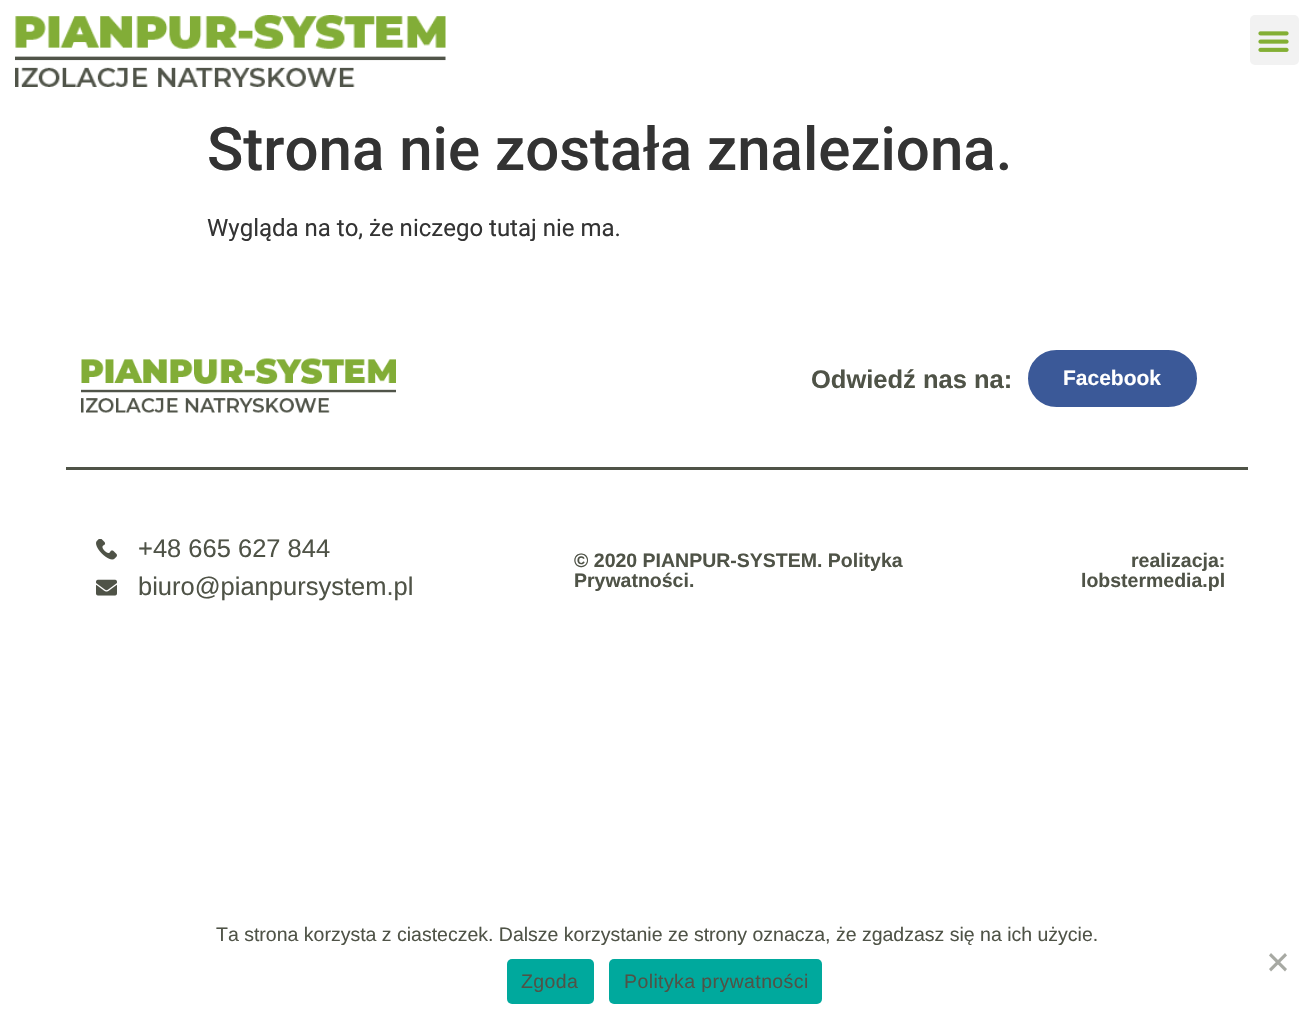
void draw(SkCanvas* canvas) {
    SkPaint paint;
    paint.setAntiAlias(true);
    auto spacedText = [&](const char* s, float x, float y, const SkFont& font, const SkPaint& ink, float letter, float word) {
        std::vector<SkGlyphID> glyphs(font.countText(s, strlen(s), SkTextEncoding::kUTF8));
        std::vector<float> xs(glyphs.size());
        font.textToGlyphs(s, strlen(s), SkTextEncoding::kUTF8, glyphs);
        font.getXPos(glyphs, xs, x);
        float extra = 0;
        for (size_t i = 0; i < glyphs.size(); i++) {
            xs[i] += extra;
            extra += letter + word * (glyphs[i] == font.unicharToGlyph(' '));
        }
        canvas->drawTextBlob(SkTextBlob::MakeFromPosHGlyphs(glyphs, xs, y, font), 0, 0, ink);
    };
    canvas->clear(0xFFFFFFFF);
    canvas->drawImageRect(SkImages::DeferredFromEncodedData(SkData::MakeFromFileName("img1.png")), SkRect::MakeXYWH(15, 15, 431, 72), SkSamplingOptions());
    paint.setColor(0xFFF2F2F2);
    canvas->drawRoundRect(SkRect::MakeXYWH(1250, 15, 49, 50), 5, 5, paint);
    canvas->drawImageRect(SkImages::DeferredFromEncodedData(SkData::MakeFromFileName("img2.png")), SkRect::MakeXYWH(1258, 31, 31, 21), SkSamplingOptions());
    SkFont font1(fontMgr->matchFamilyStyle("Roboto", SkFontStyle(500, SkFontStyle::kNormal_Width, SkFontStyle::kUpright_Slant)), 60);
    font1.setSubpixel(true);
    paint.setColor(0xFF333333);
    canvas->drawString("Strona nie została znaleziona.", 207, 170, font1, paint);
    SkFont font2(fontMgr->matchFamilyStyle("Roboto", SkFontStyle::Normal()), 24);
    font2.setSubpixel(true);
    canvas->drawString("Wygląda na to, że niczego tutaj nie ma.", 207, 236, font2, paint);
    canvas->drawImageRect(SkImages::DeferredFromEncodedData(SkData::MakeFromFileName("img3.png")), SkRect::MakeXYWH(81, 358, 315, 55), SkSamplingOptions());
    SkFont font3(fontMgr->matchFamilyStyle("Liberation Sans", SkFontStyle::Bold()), 25.5f);
    font3.setSubpixel(true);
    paint.setColor(0xFF4F5347);
    canvas->drawString("Odwiedź nas na:", 811, 388, font3, paint);
    paint.setColor(0xFF3B5998);
    canvas->drawRoundRect(SkRect::MakeXYWH(1029, 351, 167, 55), 27.5f, 27.5f, paint);
    paint.setStyle(SkPaint::kStroke_Style);
    paint.setStrokeWidth(2);
    canvas->drawRoundRect(SkRect::MakeXYWH(1029, 351, 167, 55), 27.5f, 27.5f, paint);
    SkFont font4(fontMgr->matchFamilyStyle("Liberation Sans", SkFontStyle::Bold()), 21);
    font4.setSubpixel(true);
    paint.setStyle(SkPaint::kFill_Style);
    paint.setColor(0xFFFFFFFF);
    canvas->drawString("Facebook", 1063, 385, font4, paint);
    paint.setColor(0xFF4F5347);
    canvas->drawRect(SkRect::MakeXYWH(66, 467, 1182, 3), paint);
    canvas->drawImageRect(SkImages::DeferredFromEncodedData(SkData::MakeFromFileName("img4.png")), SkRect::MakeXYWH(96, 539, 21, 21), SkSamplingOptions());
    SkFont font5(fontMgr->matchFamilyStyle("Liberation Sans", SkFontStyle::Normal()), 25.5f);
    font5.setSubpixel(true);
    canvas->drawString("+48 665 627 844", 138, 557, font5, paint);
    canvas->drawImageRect(SkImages::DeferredFromEncodedData(SkData::MakeFromFileName("img5.png")), SkRect::MakeXYWH(96, 579, 21, 17), SkSamplingOptions());
    canvas->drawString("biuro@pianpursystem.pl", 138, 595, font5, paint);
    SkFont font6(fontMgr->matchFamilyStyle("Liberation Sans", SkFontStyle::Bold()), 19.5f);
    font6.setSubpixel(true);
    canvas->drawString("© 2020 PIANPUR-SYSTEM. Polityka", 574, 567, font6, paint);
    canvas->drawString("Prywatności.", 574, 587, font6, paint);
    canvas->drawString("realizacja:", 1131, 567, font6, paint);
    canvas->drawString("lobstermedia.pl", 1081, 587, font6, paint);
    SkFont font7(fontMgr->matchFamilyStyle("Liberation Sans", SkFontStyle::Normal()), 19.5f);
    font7.setSubpixel(true);
    canvas->drawString("Ta strona korzysta z ciasteczek. Dalsze korzystanie ze strony oznacza, że zgadzasz się na ich użycie.", 216, 941, font7, paint);
    paint.setColor(0xFFA7A9A3);
    canvas->drawPath(SkPathBuilder().moveTo(1285, 953).lineTo(1287, 955.5f).lineTo(1271, 971.5f).lineTo(1269, 969).close().detach(), paint);
    canvas->drawPath(SkPathBuilder().moveTo(1269, 955.5f).lineTo(1271, 953).lineTo(1287, 969).lineTo(1285, 971.5f).close().detach(), paint);
    paint.setColor(0xFF00A99D);
    canvas->drawRoundRect(SkRect::MakeXYWH(507, 959, 87, 45), 5, 5, paint);
    paint.setColor(0xFF4F5347);
    spacedText("Zgoda", 521, 988, font7, paint, 0.4f, 0);
    paint.setColor(0xFF00A99D);
    canvas->drawRoundRect(SkRect::MakeXYWH(609, 959, 213, 45), 5, 5, paint);
    paint.setColor(0xFF4F5347);
    spacedText("Polityka prywatności", 624, 988, font7, paint, 0.4f, 0);
}
